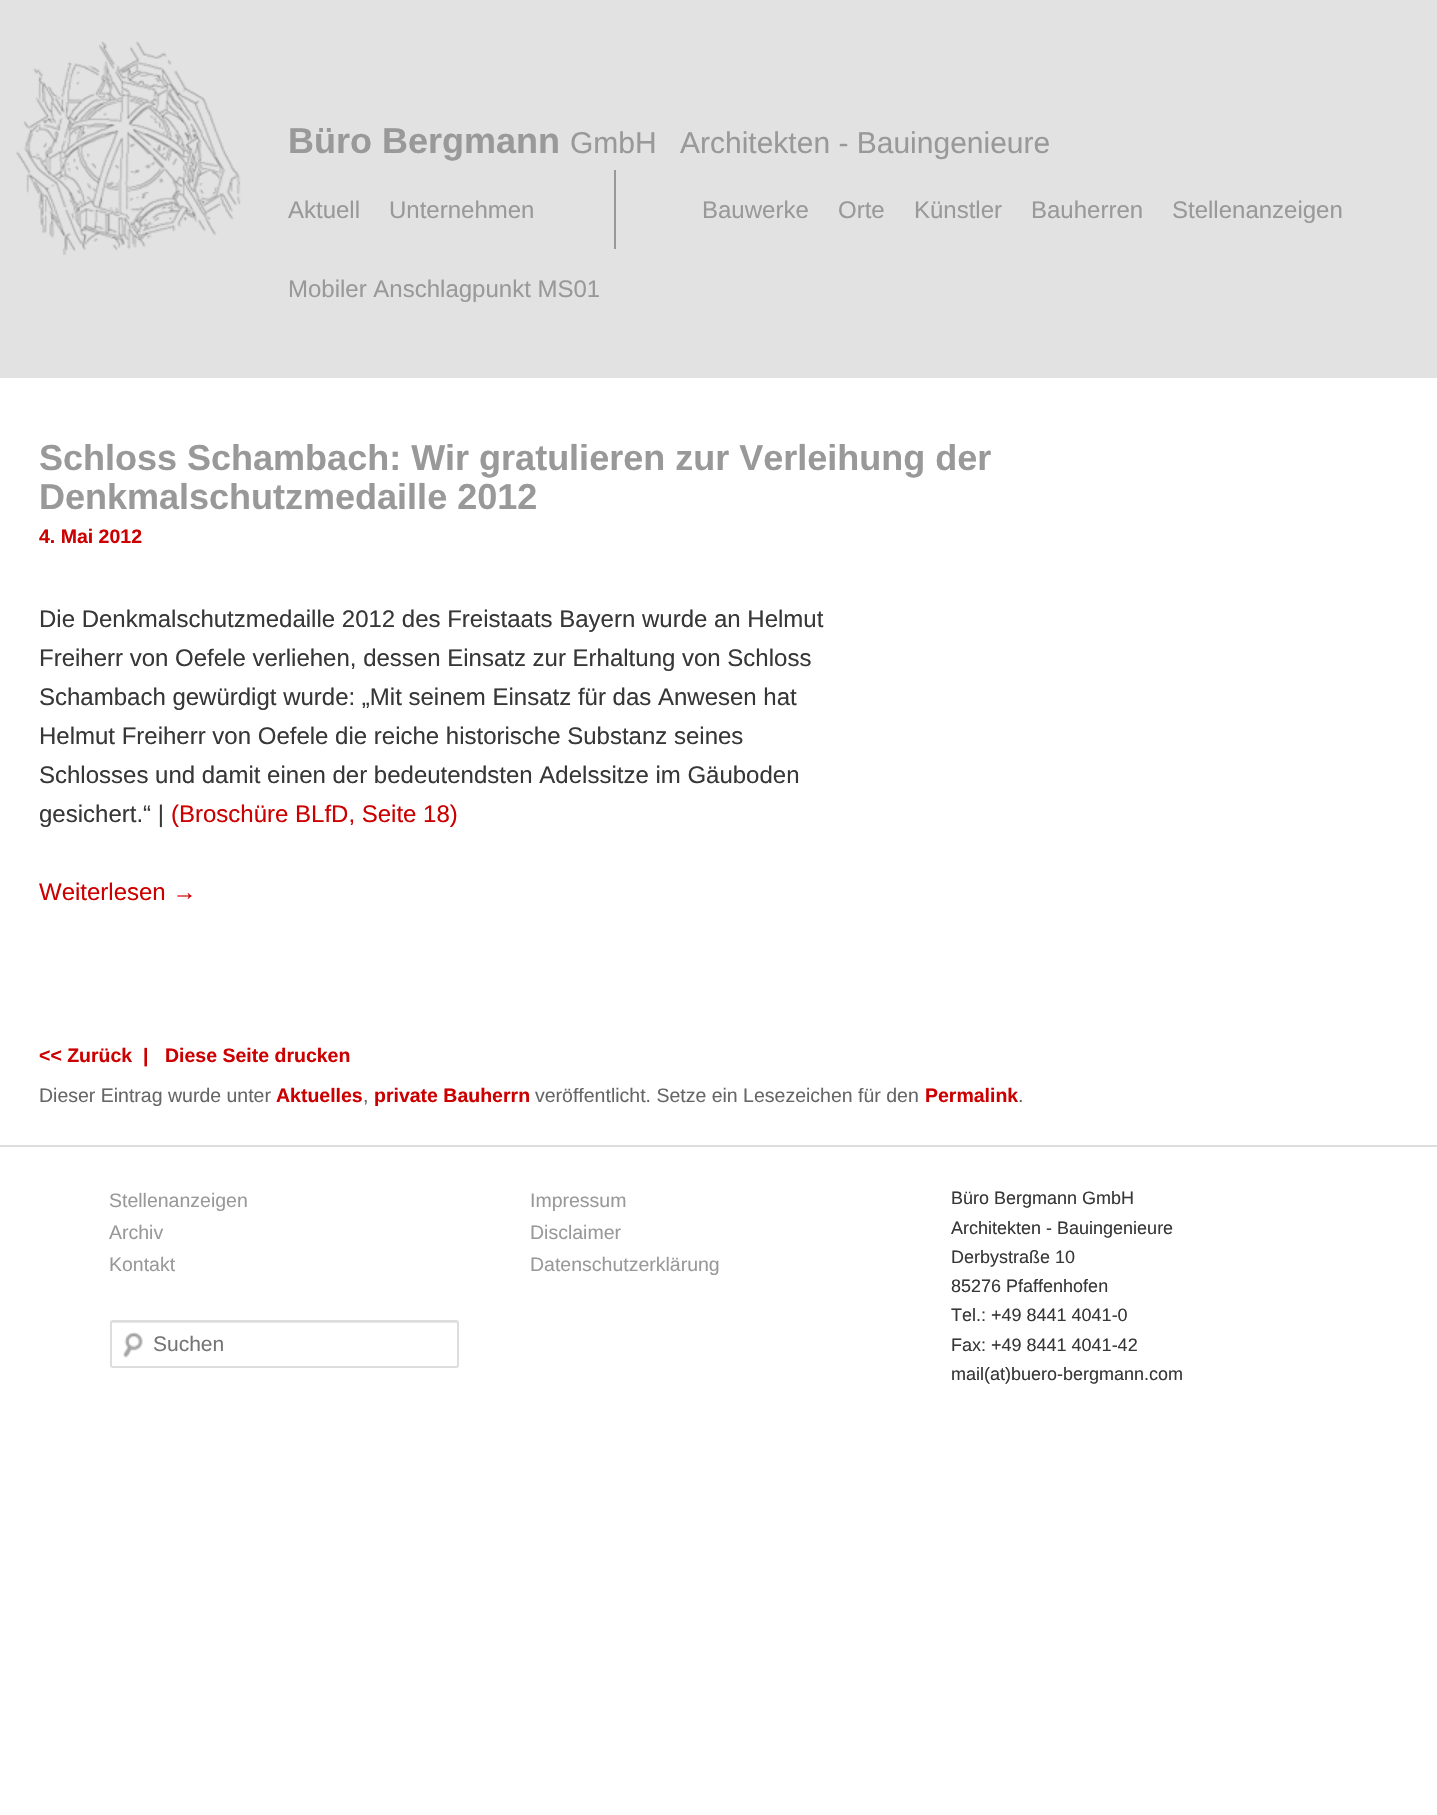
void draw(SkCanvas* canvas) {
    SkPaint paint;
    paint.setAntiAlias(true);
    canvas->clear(0xFFFFFFFF);
    paint.setColor(0xFFE2E2E2);
    canvas->drawRect(SkRect::MakeXYWH(0, 0, 1437, 378), paint);
    canvas->drawImageRect(SkImages::DeferredFromEncodedData(SkData::MakeFromFileName("img1.png")), SkRect::MakeXYWH(16, 41, 225, 214), SkSamplingOptions());
    SkFont font1(fontMgr->matchFamilyStyle("Liberation Sans", SkFontStyle::Bold()), 36);
    font1.setSubpixel(true);
    paint.setColor(0xFF999999);
    canvas->drawString("Büro Bergmann", 288, 153, font1, paint);
    SkFont font2(fontMgr->matchFamilyStyle("Liberation Sans", SkFontStyle::Normal()), 30);
    font2.setSubpixel(true);
    canvas->drawString("GmbH", 570, 153, font2, paint);
    canvas->drawString("Architekten - Bauingenieure", 680, 153, font2, paint);
    SkFont font3(fontMgr->matchFamilyStyle("Liberation Sans", SkFontStyle::Normal()), 24);
    font3.setSubpixel(true);
    canvas->drawString("Aktuell", 288, 218, font3, paint);
    canvas->drawString("Unternehmen", 389, 218, font3, paint);
    canvas->drawRect(SkRect::MakeXYWH(614, 170, 2, 79), paint);
    canvas->drawString("Bauwerke", 702, 218, font3, paint);
    canvas->drawString("Orte", 838, 218, font3, paint);
    canvas->drawString("Künstler", 914, 218, font3, paint);
    canvas->drawString("Bauherren", 1031, 218, font3, paint);
    canvas->drawString("Stellenanzeigen", 1172, 218, font3, paint);
    canvas->drawString("Mobiler Anschlagpunkt MS01", 288, 297, font3, paint);
    canvas->drawString("Schloss Schambach: Wir gratulieren zur Verleihung der", 39, 470, font1, paint);
    canvas->drawString("Denkmalschutzmedaille 2012", 39, 509, font1, paint);
    SkFont font4(fontMgr->matchFamilyStyle("Liberation Sans", SkFontStyle::Bold()), 19.5f);
    font4.setSubpixel(true);
    paint.setColor(0xFFCC0000);
    canvas->drawString("4. Mai 2012", 39, 543, font4, paint);
    paint.setColor(0xFF373737);
    canvas->drawString("Die Denkmalschutzmedaille 2012 des Freistaats Bayern wurde an Helmut", 39, 627, font3, paint);
    canvas->drawString("Freiherr von Oefele verliehen, dessen Einsatz zur Erhaltung von Schloss", 39, 666, font3, paint);
    canvas->drawString("Schambach gewürdigt wurde: „Mit seinem Einsatz für das Anwesen hat", 39, 705, font3, paint);
    canvas->drawString("Helmut Freiherr von Oefele die reiche historische Substanz seines", 39, 744, font3, paint);
    canvas->drawString("Schlosses und damit einen der bedeutendsten Adelssitze im Gäuboden", 39, 783, font3, paint);
    canvas->drawString("gesichert.“ |", 39, 822, font3, paint);
    paint.setColor(0xFFCC0000);
    canvas->drawString("(Broschüre BLfD, Seite 18)", 171, 822, font3, paint);
    canvas->drawString("Weiterlesen →", 39, 900, font3, paint);
    canvas->drawString("<< Zurück  |", 39, 1062, font4, paint);
    canvas->drawString("Diese Seite drucken", 165, 1062, font4, paint);
    SkFont font5(fontMgr->matchFamilyStyle("Liberation Sans", SkFontStyle::Normal()), 19.5f);
    font5.setSubpixel(true);
    paint.setColor(0xFF666666);
    canvas->drawString("Dieser Eintrag wurde unter", 39, 1102, font5, paint);
    paint.setColor(0xFFCC0000);
    canvas->drawString("Aktuelles", 276, 1102, font4, paint);
    paint.setColor(0xFF666666);
    canvas->drawString(",", 363, 1102, font5, paint);
    paint.setColor(0xFFCC0000);
    canvas->drawString("private Bauherrn", 374, 1102, font4, paint);
    paint.setColor(0xFF666666);
    canvas->drawString("veröffentlicht. Setze ein Lesezeichen für den", 535, 1102, font5, paint);
    paint.setColor(0xFFCC0000);
    canvas->drawString("Permalink", 925, 1102, font4, paint);
    paint.setColor(0xFF666666);
    canvas->drawString(".", 1018, 1102, font5, paint);
    paint.setColor(0xFFDDDDDD);
    canvas->drawRect(SkRect::MakeXYWH(0, 1145, 1437, 2), paint);
    paint.setColor(0xFF999999);
    canvas->drawString("Stellenanzeigen", 109, 1207, font5, paint);
    canvas->drawString("Archiv", 109, 1239, font5, paint);
    canvas->drawString("Kontakt", 109, 1271, font5, paint);
    canvas->drawImageRect(SkImages::DeferredFromEncodedData(SkData::MakeFromFileName("img2.png")), SkRect::MakeXYWH(123, 1332, 20, 26), SkSamplingOptions());
    paint.setColor(0xFFE6E6E6);
    canvas->drawPath(SkPathBuilder().moveTo(112, 1323).lineTo(456, 1323).cubicTo(457, 1323, 458, 1324, 458, 1324).cubicTo(458, 1323, 458, 1322, 456, 1322).lineTo(112, 1322).cubicTo(111, 1322, 111, 1323, 111, 1324).close().detach(), paint);
    paint.setStyle(SkPaint::kStroke_Style);
    paint.setStrokeWidth(2);
    paint.setColor(0xFFDDDDDD);
    canvas->drawRoundRect(SkRect::MakeXYWH(111, 1321, 347, 46), 2, 2, paint);
    SkFont font6(fontMgr->matchFamilyStyle("Liberation Sans", SkFontStyle::Normal()), 21);
    font6.setSubpixel(true);
    paint.setStyle(SkPaint::kFill_Style);
    paint.setColor(0xFF757575);
    canvas->drawString("Suchen", 153, 1351, font6, paint);
    paint.setColor(0xFF999999);
    canvas->drawString("Impressum", 530, 1207, font5, paint);
    canvas->drawString("Disclaimer", 530, 1239, font5, paint);
    canvas->drawString("Datenschutzerklärung", 530, 1271, font5, paint);
    SkFont font7(fontMgr->matchFamilyStyle("Liberation Sans", SkFontStyle::Normal()), 18);
    font7.setSubpixel(true);
    paint.setColor(0xFF373737);
    canvas->drawString("Büro Bergmann GmbH", 951, 1204, font7, paint);
    canvas->drawString("Architekten - Bauingenieure", 951, 1234, font7, paint);
    canvas->drawString("Derbystraße 10", 951, 1263, font7, paint);
    canvas->drawString("85276 Pfaffenhofen", 951, 1292, font7, paint);
    canvas->drawString("Tel.: +49 8441 4041-0", 951, 1321, font7, paint);
    canvas->drawString("Fax: +49 8441 4041-42", 951, 1351, font7, paint);
    canvas->drawString("mail(at)buero-bergmann.com", 951, 1380, font7, paint);
}
